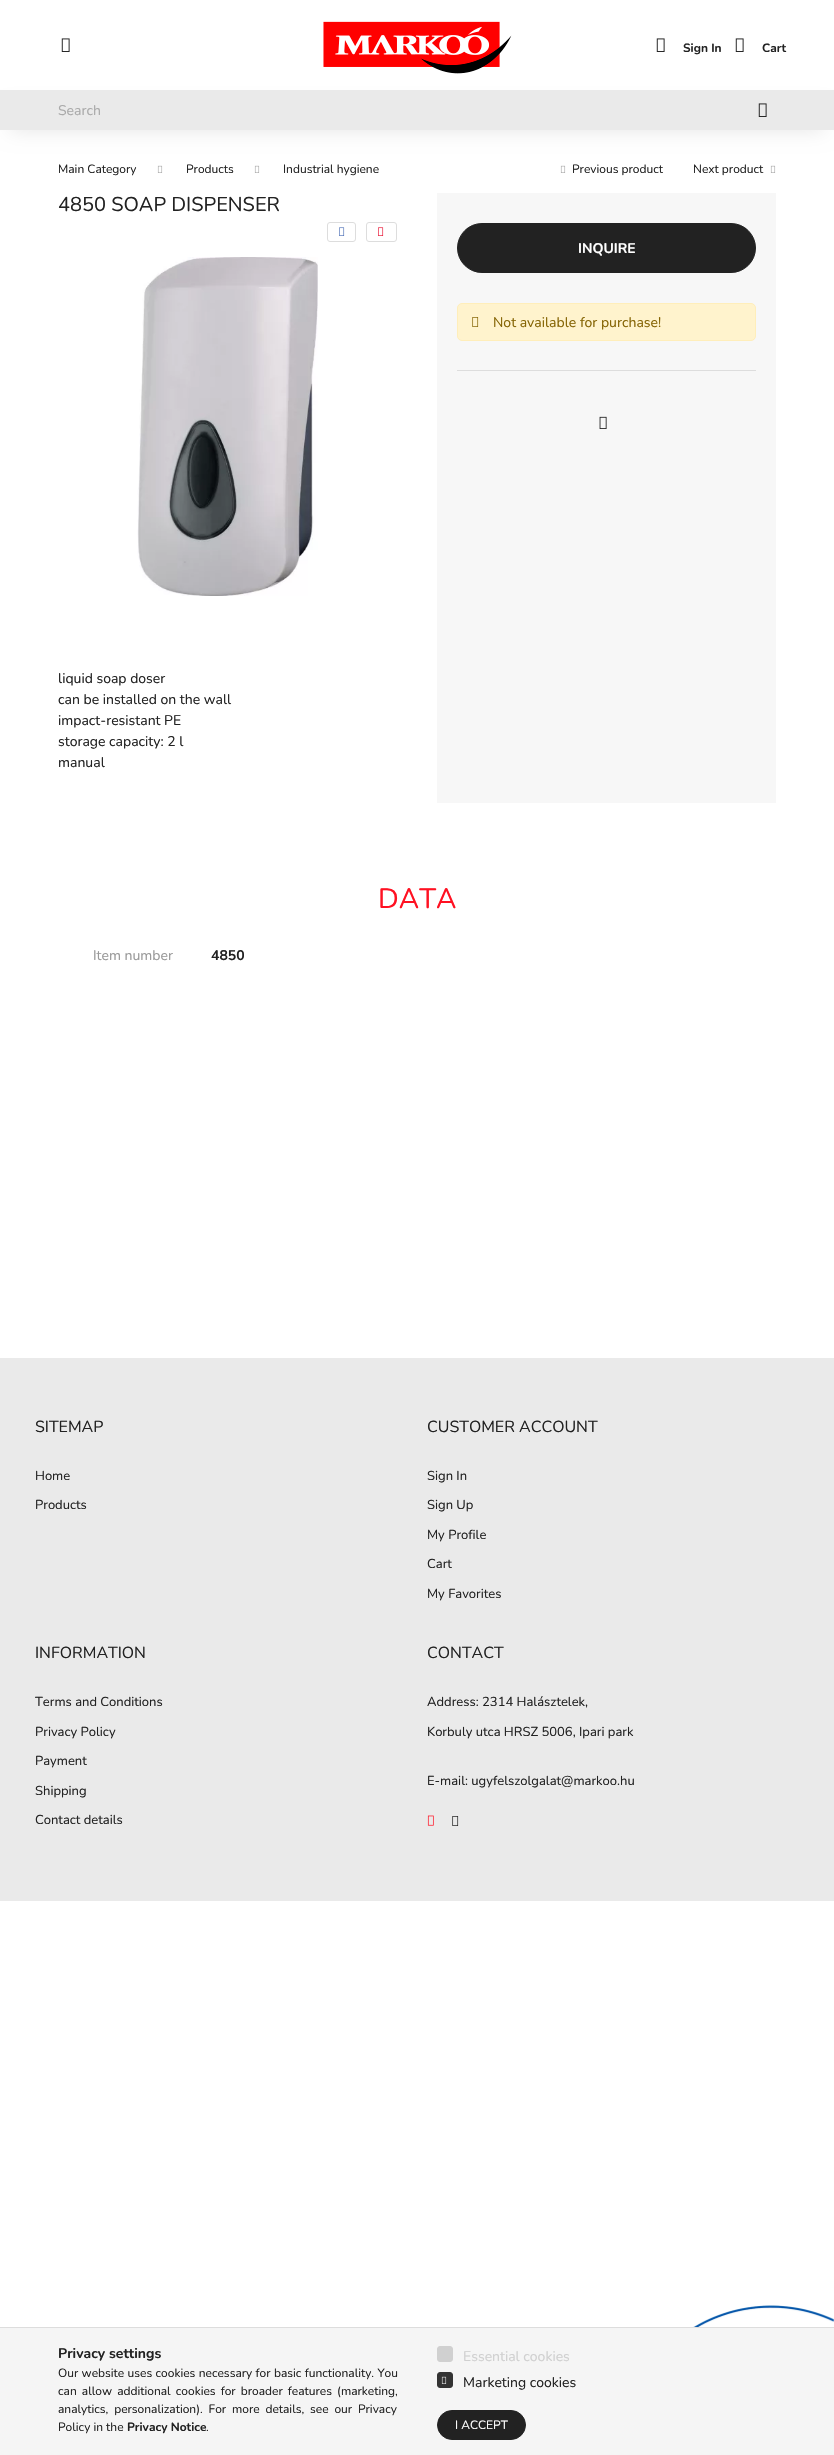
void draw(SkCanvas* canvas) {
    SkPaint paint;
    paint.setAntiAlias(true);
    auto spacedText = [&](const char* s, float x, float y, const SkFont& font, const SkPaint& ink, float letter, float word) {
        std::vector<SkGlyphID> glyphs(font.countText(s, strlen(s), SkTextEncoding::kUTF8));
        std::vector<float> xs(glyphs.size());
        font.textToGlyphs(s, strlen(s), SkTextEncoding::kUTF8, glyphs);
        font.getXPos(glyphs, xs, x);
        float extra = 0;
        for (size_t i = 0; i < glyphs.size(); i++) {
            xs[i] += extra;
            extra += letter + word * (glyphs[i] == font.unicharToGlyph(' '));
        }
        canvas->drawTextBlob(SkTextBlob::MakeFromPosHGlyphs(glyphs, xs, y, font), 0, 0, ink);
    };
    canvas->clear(0xFFFFFFFF);
    canvas->drawImageRect(SkImages::DeferredFromEncodedData(SkData::MakeFromFileName("img1.png")), SkRect::MakeXYWH(61, 38, 9, 14), SkSamplingOptions());
    canvas->drawImageRect(SkImages::DeferredFromEncodedData(SkData::MakeFromFileName("img2.png")), SkRect::MakeXYWH(323, 21, 189, 53), SkSamplingOptions());
    canvas->drawImageRect(SkImages::DeferredFromEncodedData(SkData::MakeFromFileName("img1.png")), SkRect::MakeXYWH(656, 38, 9, 14), SkSamplingOptions());
    SkFont font1(fontMgr->matchFamilyStyle("Nunito", SkFontStyle::Bold()), 12);
    font1.setSubpixel(true);
    paint.setColor(0xFF222222);
    canvas->drawString("Sign In", 683, 52, font1, paint);
    canvas->drawImageRect(SkImages::DeferredFromEncodedData(SkData::MakeFromFileName("img1.png")), SkRect::MakeXYWH(735, 38, 9, 14), SkSamplingOptions());
    canvas->drawString("Cart", 762, 52, font1, paint);
    paint.setColor(0x1A000000);
    paint.setMaskFilter(SkMaskFilter::MakeBlur(kNormal_SkBlurStyle, 10));
    canvas->drawRect(SkRect::MakeXYWH(10, 110, 814, 20), paint);
    paint.setMaskFilter(nullptr);
    paint.setColor(0xFFEAEAEA);
    canvas->drawRect(SkRect::MakeXYWH(0, 90, 834, 40), paint);
    SkFont font2(fontMgr->matchFamilyStyle("Nunito", SkFontStyle::Normal()), 14);
    font2.setSubpixel(true);
    paint.setColor(0xFFAAAAAA);
    canvas->drawString("Search", 58, 115, font2, paint);
    canvas->drawImageRect(SkImages::DeferredFromEncodedData(SkData::MakeFromFileName("img3.png")), SkRect::MakeXYWH(758, 103, 9, 14), SkSamplingOptions());
    SkFont font3(fontMgr->matchFamilyStyle("Nunito", SkFontStyle::Normal()), 12);
    font3.setSubpixel(true);
    paint.setColor(0xFF222222);
    canvas->drawString("Main Category", 58, 173, font3, paint);
    canvas->drawImageRect(SkImages::DeferredFromEncodedData(SkData::MakeFromFileName("img4.png")), SkRect::MakeXYWH(157, 165, 6, 8), SkSamplingOptions());
    canvas->drawString("Products", 186, 173, font3, paint);
    canvas->drawImageRect(SkImages::DeferredFromEncodedData(SkData::MakeFromFileName("img4.png")), SkRect::MakeXYWH(254, 165, 6, 8), SkSamplingOptions());
    canvas->drawString("Industrial hygiene", 283, 173, font3, paint);
    canvas->drawImageRect(SkImages::DeferredFromEncodedData(SkData::MakeFromFileName("img4.png")), SkRect::MakeXYWH(560, 165, 6, 8), SkSamplingOptions());
    canvas->drawString("Previous product", 572, 173, font3, paint);
    canvas->drawString("Next product", 693, 173, font3, paint);
    canvas->drawImageRect(SkImages::DeferredFromEncodedData(SkData::MakeFromFileName("img4.png")), SkRect::MakeXYWH(770, 165, 6, 8), SkSamplingOptions());
    SkFont font4(fontMgr->matchFamilyStyle("Nunito", SkFontStyle::Normal()), 20);
    font4.setSubpixel(true);
    canvas->drawString("4850 SOAP DISPENSER", 58, 211, font4, paint);
    paint.setStyle(SkPaint::kStroke_Style);
    paint.setStrokeWidth(1);
    paint.setColor(0xFFDDDDDD);
    canvas->drawRoundRect(SkRect::MakeXYWH(327.5f, 222.5f, 28, 19), 2.5f, 2.5f, paint);
    canvas->drawImageRect(SkImages::DeferredFromEncodedData(SkData::MakeFromFileName("img5.png")), SkRect::MakeXYWH(339, 227, 6, 9), SkSamplingOptions());
    canvas->drawRoundRect(SkRect::MakeXYWH(366.5f, 222.5f, 30, 19), 2.5f, 2.5f, paint);
    canvas->drawImageRect(SkImages::DeferredFromEncodedData(SkData::MakeFromFileName("img6.png")), SkRect::MakeXYWH(378, 227, 6, 9), SkSamplingOptions());
    canvas->drawImageRect(SkImages::DeferredFromEncodedData(SkData::MakeFromFileName("img7.png")), SkRect::MakeXYWH(137, 257, 181, 339), SkSamplingOptions());
    paint.setStyle(SkPaint::kFill_Style);
    paint.setColor(0xFF222222);
    canvas->drawString("liquid soap doser", 58, 683, font2, paint);
    canvas->drawString("can be installed on the wall", 58, 704, font2, paint);
    canvas->drawString("impact-resistant PE", 58, 725, font2, paint);
    canvas->drawString("storage capacity: 2 l", 58, 746, font2, paint);
    canvas->drawString("manual", 58, 767, font2, paint);
    paint.setColor(0xFFF7F7F7);
    canvas->drawRect(SkRect::MakeXYWH(437, 193, 339, 610), paint);
    paint.setColor(0xFF222222);
    canvas->drawRoundRect(SkRect::MakeXYWH(457.5f, 223.5f, 298, 49), 24.5f, 24.5f, paint);
    paint.setStyle(SkPaint::kStroke_Style);
    canvas->drawRoundRect(SkRect::MakeXYWH(457.5f, 223.5f, 298, 49), 24.5f, 24.5f, paint);
    SkFont font5(fontMgr->matchFamilyStyle("Nunito", SkFontStyle::Bold()), 14);
    font5.setSubpixel(true);
    paint.setStyle(SkPaint::kFill_Style);
    paint.setColor(0xFFFFFFFF);
    canvas->drawString("INQUIRE", 578, 253, font5, paint);
    paint.setColor(0xFFFFF3CD);
    canvas->drawRoundRect(SkRect::MakeXYWH(457.5f, 303.5f, 298, 37), 4.5f, 4.5f, paint);
    paint.setStyle(SkPaint::kStroke_Style);
    paint.setColor(0xFFFFEEBA);
    canvas->drawRoundRect(SkRect::MakeXYWH(457.5f, 303.5f, 298, 37), 4.5f, 4.5f, paint);
    canvas->drawImageRect(SkImages::DeferredFromEncodedData(SkData::MakeFromFileName("img8.png")), SkRect::MakeXYWH(472, 317, 7, 10), SkSamplingOptions());
    paint.setStyle(SkPaint::kFill_Style);
    paint.setColor(0xFF856404);
    canvas->drawString("Not available for purchase!", 493, 327, font2, paint);
    paint.setColor(0xFFDDDDDD);
    canvas->drawRect(SkRect::MakeXYWH(457, 370, 299, 1), paint);
    canvas->drawImageRect(SkImages::DeferredFromEncodedData(SkData::MakeFromFileName("img9.png")), SkRect::MakeXYWH(599, 416, 8, 13), SkSamplingOptions());
    SkFont font6(fontMgr->matchFamilyStyle("Nunito", SkFontStyle::Normal()), 28);
    font6.setSubpixel(true);
    paint.setColor(0xFFFF1122);
    canvas->drawString("DATA", 378, 908, font6, paint);
    paint.setColor(0xFF999999);
    canvas->drawString("Item number", 93, 960, font2, paint);
    paint.setColor(0xFF222222);
    canvas->drawString("4850", 211, 960, font5, paint);
    paint.setColor(0xFFEAEAEA);
    canvas->drawRect(SkRect::MakeXYWH(0, 1358, 834, 543), paint);
    SkFont font7(fontMgr->matchFamilyStyle("Nunito", SkFontStyle::Normal()), 16);
    font7.setSubpixel(true);
    paint.setColor(0xFF222222);
    canvas->drawString("SITEMAP", 35, 1432, font7, paint);
    SkFont font8(fontMgr->matchFamilyStyle("Nunito", SkFontStyle::Normal()), 13);
    font8.setSubpixel(true);
    canvas->drawString("Home", 35, 1480, font8, paint);
    canvas->drawString("Products", 35, 1509, font8, paint);
    canvas->drawString("CUSTOMER ACCOUNT", 427, 1432, font7, paint);
    canvas->drawString("Sign In", 427, 1480, font8, paint);
    canvas->drawString("Sign Up", 427, 1509, font8, paint);
    canvas->drawString("My Profile", 427, 1539, font8, paint);
    canvas->drawString("Cart", 427, 1568, font8, paint);
    canvas->drawString("My Favorites", 427, 1598, font8, paint);
    canvas->drawString("INFORMATION", 35, 1658, font7, paint);
    canvas->drawString("Terms and Conditions", 35, 1706, font8, paint);
    canvas->drawString("Privacy Policy", 35, 1736, font8, paint);
    canvas->drawString("Payment", 35, 1765, font8, paint);
    canvas->drawString("Shipping", 35, 1795, font8, paint);
    canvas->drawString("Contact details", 35, 1824, font8, paint);
    canvas->drawString("CONTACT", 427, 1658, font7, paint);
    canvas->drawString("Address: 2314 Halásztelek,", 427, 1706, font8, paint);
    canvas->drawString("Korbuly utca HRSZ 5006, Ipari park", 427, 1736, font8, paint);
    canvas->drawString("E-mail: ugyfelszolgalat@markoo.hu", 427, 1785, font8, paint);
    canvas->drawImageRect(SkImages::DeferredFromEncodedData(SkData::MakeFromFileName("img10.png")), SkRect::MakeXYWH(427, 1815, 7, 11), SkSamplingOptions());
    canvas->drawImageRect(SkImages::DeferredFromEncodedData(SkData::MakeFromFileName("img11.png")), SkRect::MakeXYWH(452, 1816, 7, 10), SkSamplingOptions());
    canvas->drawImageRect(SkImages::DeferredFromEncodedData(SkData::MakeFromFileName("img12.png")), SkRect::MakeXYWH(693, 2305, 141, 22), SkSamplingOptions());
    paint.setColor(0xFFF5F5F5);
    canvas->drawRect(SkRect::MakeXYWH(0, 2328, 834, 127), paint);
    paint.setColor(0xFFDDDDDD);
    canvas->drawRect(SkRect::MakeXYWH(0, 2327, 834, 1), paint);
    paint.setColor(0xFF222222);
    canvas->drawString("Privacy settings", 58, 2358, font5, paint);
    spacedText("Our website uses cookies necessary for basic functionality. You", 58, 2377, font3, paint, 0, 0.25f);
    spacedText("can allow additional cookies for broader features (marketing,", 58, 2395, font3, paint, 0, 2);
    spacedText("analytics, personalization). For more details, see our Privacy", 58, 2413, font3, paint, 0, 2.75f);
    canvas->drawString("Policy in the", 58, 2431, font3, paint);
    canvas->drawString("Privacy Notice", 127, 2431, font1, paint);
    canvas->drawString(".", 206, 2431, font3, paint);
    paint.setColor(0xFFD0D0D0);
    canvas->drawRoundRect(SkRect::MakeXYWH(437.5f, 2346.5f, 15, 15), 2.5f, 2.5f, paint);
    paint.setStyle(SkPaint::kStroke_Style);
    canvas->drawRoundRect(SkRect::MakeXYWH(437.5f, 2346.5f, 15, 15), 2.5f, 2.5f, paint);
    paint.setStyle(SkPaint::kFill_Style);
    canvas->drawString("Essential cookies", 463, 2361, font2, paint);
    paint.setColor(0xFF333333);
    canvas->drawRoundRect(SkRect::MakeXYWH(437.5f, 2372.5f, 15, 15), 2.5f, 2.5f, paint);
    paint.setStyle(SkPaint::kStroke_Style);
    canvas->drawRoundRect(SkRect::MakeXYWH(437.5f, 2372.5f, 15, 15), 2.5f, 2.5f, paint);
    canvas->drawImageRect(SkImages::DeferredFromEncodedData(SkData::MakeFromFileName("img13.png")), SkRect::MakeXYWH(441, 2376, 6, 8), SkSamplingOptions());
    paint.setStyle(SkPaint::kFill_Style);
    paint.setColor(0xFF222222);
    canvas->drawString("Marketing cookies", 463, 2387, font2, paint);
    canvas->drawRoundRect(SkRect::MakeXYWH(437.5f, 2410.5f, 88, 29), 14.5f, 14.5f, paint);
    paint.setStyle(SkPaint::kStroke_Style);
    canvas->drawRoundRect(SkRect::MakeXYWH(437.5f, 2410.5f, 88, 29), 14.5f, 14.5f, paint);
    paint.setStyle(SkPaint::kFill_Style);
    paint.setColor(0xFFFFFFFF);
    canvas->drawString("I ACCEPT", 455, 2429, font3, paint);
}
